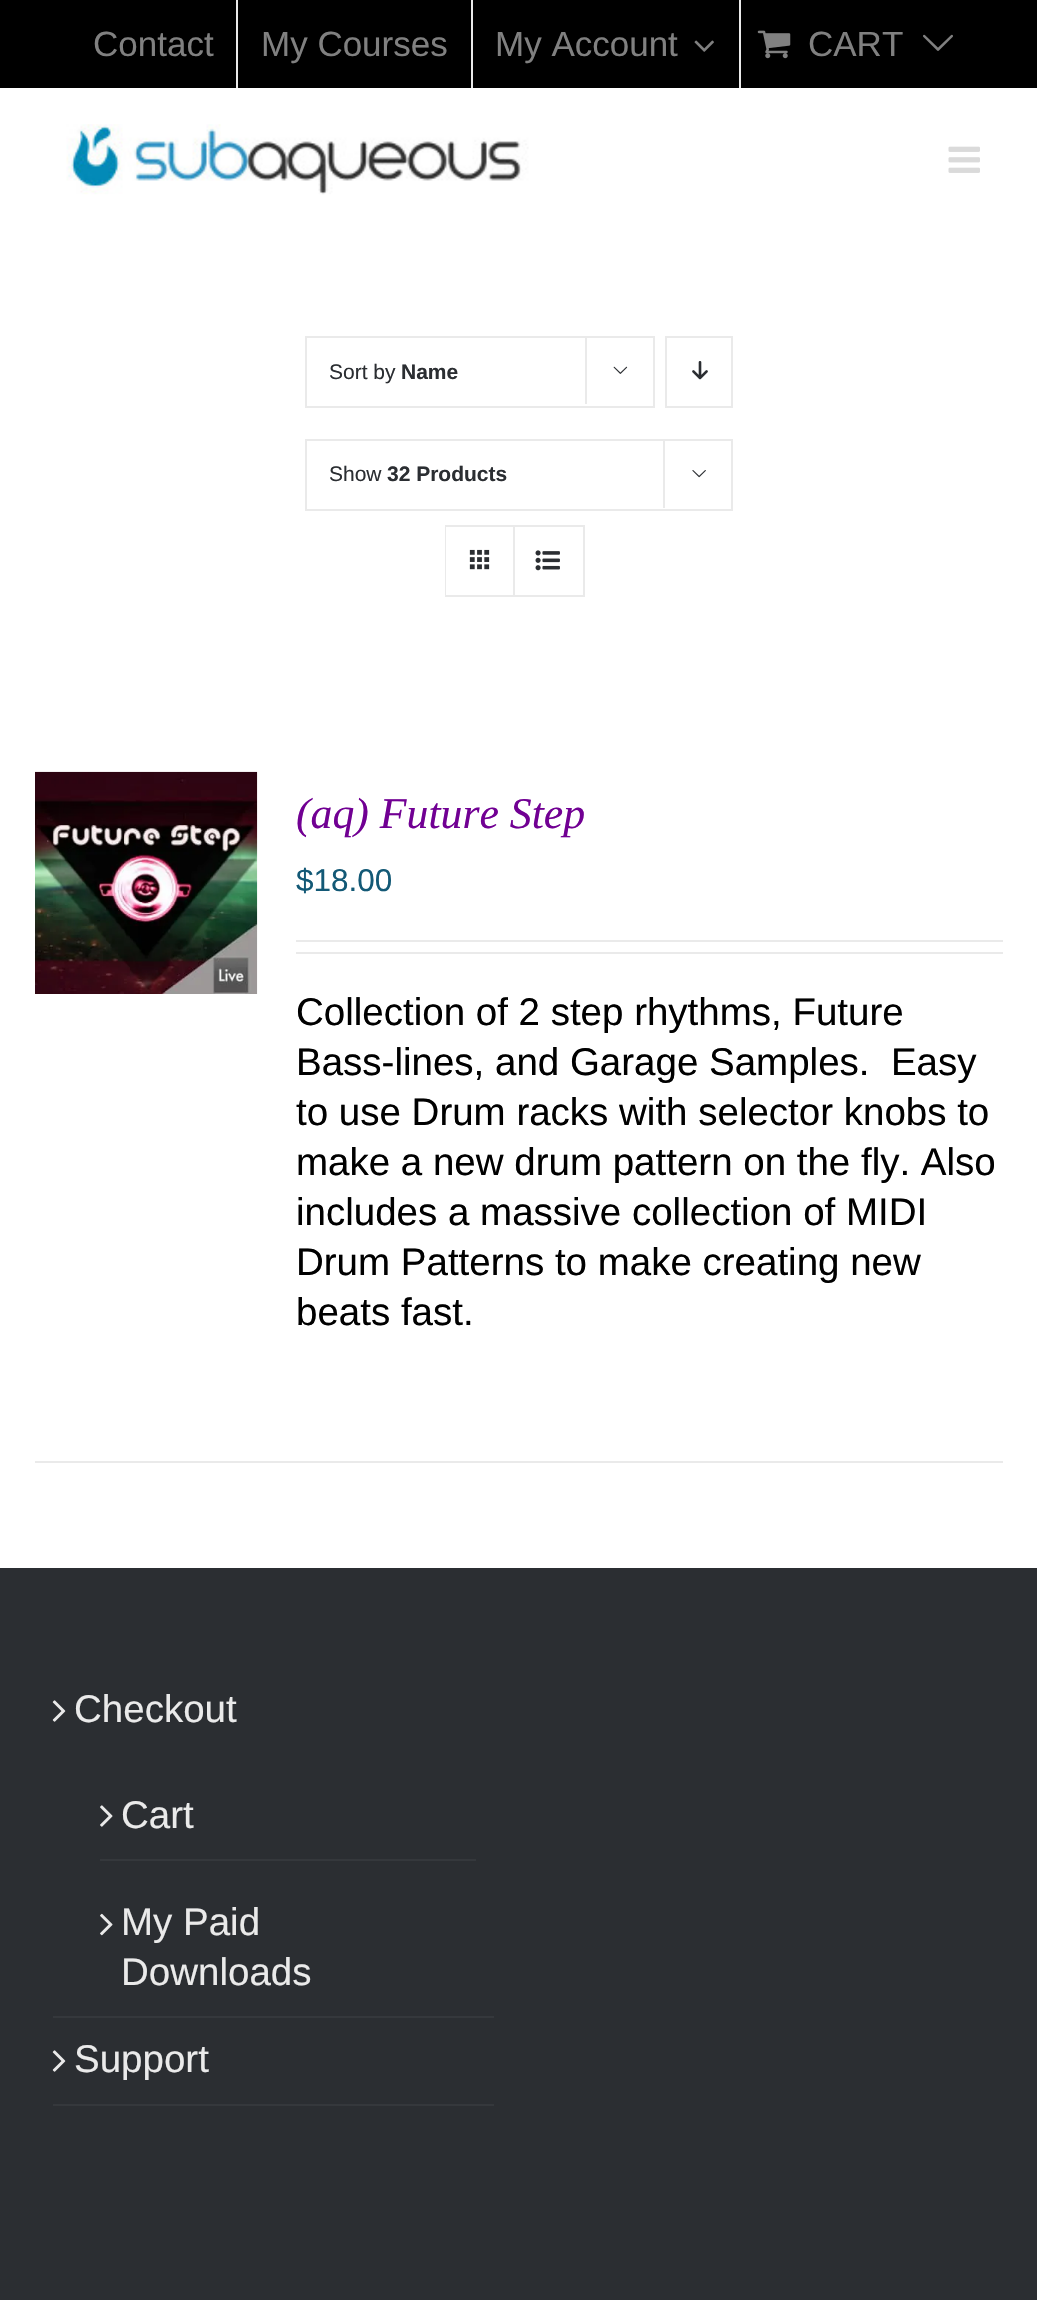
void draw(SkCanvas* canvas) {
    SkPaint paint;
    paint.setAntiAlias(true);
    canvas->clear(0xFFFFFFFF);
    paint.setColor(0xFF000000);
    canvas->drawRect(SkRect::MakeXYWH(0, 0, 1037, 88), paint);
    SkFont font1(fontMgr->matchFamilyStyle("Liberation Sans", SkFontStyle::Normal()), 35);
    font1.setSubpixel(true);
    paint.setColor(0xFF808080);
    canvas->drawString("Contact", 93, 56, font1, paint);
    paint.setColor(0xFFEAEAEA);
    canvas->drawRect(SkRect::MakeXYWH(236, 0, 2, 88), paint);
    paint.setColor(0xFF808080);
    canvas->drawString("My Courses", 261, 56, font1, paint);
    paint.setColor(0xFFEAEAEA);
    canvas->drawRect(SkRect::MakeXYWH(471, 0, 2, 88), paint);
    paint.setColor(0xFF808080);
    canvas->drawString("My Account", 495, 56, font1, paint);
    canvas->drawImageRect(SkImages::DeferredFromEncodedData(SkData::MakeFromFileName("img1.png")), SkRect::MakeXYWH(694, 40, 20, 12), SkSamplingOptions());
    paint.setColor(0xFFEAEAEA);
    canvas->drawRect(SkRect::MakeXYWH(739, 0, 2, 88), paint);
    canvas->drawImageRect(SkImages::DeferredFromEncodedData(SkData::MakeFromFileName("img2.png")), SkRect::MakeXYWH(757, 30, 34, 29), SkSamplingOptions());
    paint.setColor(0xFF808080);
    canvas->drawString("CART", 808, 56, font1, paint);
    canvas->drawImageRect(SkImages::DeferredFromEncodedData(SkData::MakeFromFileName("img3.png")), SkRect::MakeXYWH(923, 34, 30, 17), SkSamplingOptions());
    canvas->drawImageRect(SkImages::DeferredFromEncodedData(SkData::MakeFromFileName("img4.png")), SkRect::MakeXYWH(66, 124, 463, 71), SkSamplingOptions());
    canvas->drawImageRect(SkImages::DeferredFromEncodedData(SkData::MakeFromFileName("img5.png")), SkRect::MakeXYWH(948, 146, 32, 27), SkSamplingOptions());
    paint.setStyle(SkPaint::kStroke_Style);
    paint.setStrokeWidth(2);
    paint.setColor(0xFFEAEAEA);
    canvas->drawRect(SkRect::MakeXYWH(306, 337, 348, 70), paint);
    SkFont font2(fontMgr->matchFamilyStyle("Liberation Sans", SkFontStyle::Normal()), 21);
    font2.setSubpixel(true);
    paint.setStyle(SkPaint::kFill_Style);
    paint.setColor(0xFF2B2E32);
    canvas->drawString("Sort by", 329, 379, font2, paint);
    SkFont font3(fontMgr->matchFamilyStyle("Liberation Sans", SkFontStyle::Bold()), 21);
    font3.setSubpixel(true);
    canvas->drawString("Name", 401, 379, font3, paint);
    paint.setColor(0xFFEAEAEA);
    canvas->drawRect(SkRect::MakeXYWH(585, 336, 2, 68), paint);
    canvas->drawImageRect(SkImages::DeferredFromEncodedData(SkData::MakeFromFileName("img6.png")), SkRect::MakeXYWH(613, 366, 15, 8), SkSamplingOptions());
    paint.setStyle(SkPaint::kStroke_Style);
    canvas->drawRect(SkRect::MakeXYWH(666, 337, 66, 70), paint);
    canvas->drawImageRect(SkImages::DeferredFromEncodedData(SkData::MakeFromFileName("img7.png")), SkRect::MakeXYWH(692, 361, 16, 19), SkSamplingOptions());
    canvas->drawRect(SkRect::MakeXYWH(306, 440, 426, 70), paint);
    paint.setStyle(SkPaint::kFill_Style);
    paint.setColor(0xFF2B2E32);
    canvas->drawString("Show", 329, 481, font2, paint);
    canvas->drawString("32 Products", 387, 481, font3, paint);
    paint.setColor(0xFFEAEAEA);
    canvas->drawRect(SkRect::MakeXYWH(663, 439, 2, 69), paint);
    canvas->drawImageRect(SkImages::DeferredFromEncodedData(SkData::MakeFromFileName("img8.png")), SkRect::MakeXYWH(692, 470, 14, 8), SkSamplingOptions());
    paint.setStyle(SkPaint::kStroke_Style);
    canvas->drawRect(SkRect::MakeXYWH(446, 526, 138, 70), paint);
    paint.setStyle(SkPaint::kFill_Style);
    paint.setColor(0xFFFFFFFF);
    canvas->drawRect(SkRect::MakeXYWH(446, 527, 1, 68), paint);
    paint.setColor(0xFFEAEAEA);
    canvas->drawRect(SkRect::MakeXYWH(513, 527, 2, 68), paint);
    canvas->drawImageRect(SkImages::DeferredFromEncodedData(SkData::MakeFromFileName("img9.png")), SkRect::MakeXYWH(469, 549, 21, 21), SkSamplingOptions());
    canvas->drawImageRect(SkImages::DeferredFromEncodedData(SkData::MakeFromFileName("img10.png")), SkRect::MakeXYWH(535, 550, 25, 21), SkSamplingOptions());
    canvas->drawRect(SkRect::MakeXYWH(35, 1461, 968, 2), paint);
    canvas->drawImageRect(SkImages::DeferredFromEncodedData(SkData::MakeFromFileName("img11.png")), SkRect::MakeXYWH(35, 771, 223, 223), SkSamplingOptions());
    SkFont font4(fontMgr->matchFamilyStyle("Liberation Serif", SkFontStyle::Italic()), 43.75f);
    font4.setSubpixel(true);
    paint.setColor(0xFF710093);
    canvas->drawString("(aq) Future Step", 296, 828, font4, paint);
    SkFont font5(fontMgr->matchFamilyStyle("Liberation Sans", SkFontStyle::Normal()), 31.5f);
    font5.setSubpixel(true);
    paint.setColor(0xFF135976);
    canvas->drawString("$18.00", 296, 891, font5, paint);
    paint.setColor(0xFFEAEAEA);
    canvas->drawRect(SkRect::MakeXYWH(296, 940, 707, 2), paint);
    canvas->drawRect(SkRect::MakeXYWH(296, 952, 707, 2), paint);
    SkFont font6(fontMgr->matchFamilyStyle("Liberation Sans", SkFontStyle::Normal()), 38.5f);
    font6.setSubpixel(true);
    paint.setColor(0xFF000000);
    canvas->drawString("Collection of 2 step rhythms, Future", 296, 1025, font6, paint);
    canvas->drawString("Bass-lines, and Garage Samples.  Easy", 296, 1075, font6, paint);
    canvas->drawString("to use Drum racks with selector knobs to", 296, 1125, font6, paint);
    canvas->drawString("make a new drum pattern on the fly. Also", 296, 1175, font6, paint);
    canvas->drawString("includes a massive collection of MIDI", 296, 1225, font6, paint);
    canvas->drawString("Drum Patterns to make creating new", 296, 1275, font6, paint);
    canvas->drawString("beats fast.", 296, 1325, font6, paint);
    paint.setColor(0xFF2B2E32);
    canvas->drawRect(SkRect::MakeXYWH(0, 1568, 1037, 732), paint);
    paint.setColor(0xFF35383C);
    canvas->drawRect(SkRect::MakeXYWH(53, 2016, 441, 2), paint);
    canvas->drawImageRect(SkImages::DeferredFromEncodedData(SkData::MakeFromFileName("img12.png")), SkRect::MakeXYWH(52, 1700, 14, 22), SkSamplingOptions());
    paint.setColor(0xFFEAEAEA);
    canvas->drawString("Checkout", 74, 1722, font6, paint);
    paint.setColor(0xFF35383C);
    canvas->drawRect(SkRect::MakeXYWH(100, 1859, 376, 2), paint);
    canvas->drawImageRect(SkImages::DeferredFromEncodedData(SkData::MakeFromFileName("img13.png")), SkRect::MakeXYWH(100, 1805, 13, 22), SkSamplingOptions());
    paint.setColor(0xFFEAEAEA);
    canvas->drawString("Cart", 121, 1828, font6, paint);
    canvas->drawImageRect(SkImages::DeferredFromEncodedData(SkData::MakeFromFileName("img14.png")), SkRect::MakeXYWH(100, 1913, 13, 23), SkSamplingOptions());
    canvas->drawString("My Paid", 121, 1935, font6, paint);
    canvas->drawString("Downloads", 121, 1985, font6, paint);
    paint.setColor(0xFF35383C);
    canvas->drawRect(SkRect::MakeXYWH(53, 2104, 441, 2), paint);
    canvas->drawImageRect(SkImages::DeferredFromEncodedData(SkData::MakeFromFileName("img12.png")), SkRect::MakeXYWH(52, 2050, 14, 22), SkSamplingOptions());
    paint.setColor(0xFFEAEAEA);
    canvas->drawString("Support", 74, 2072, font6, paint);
}
